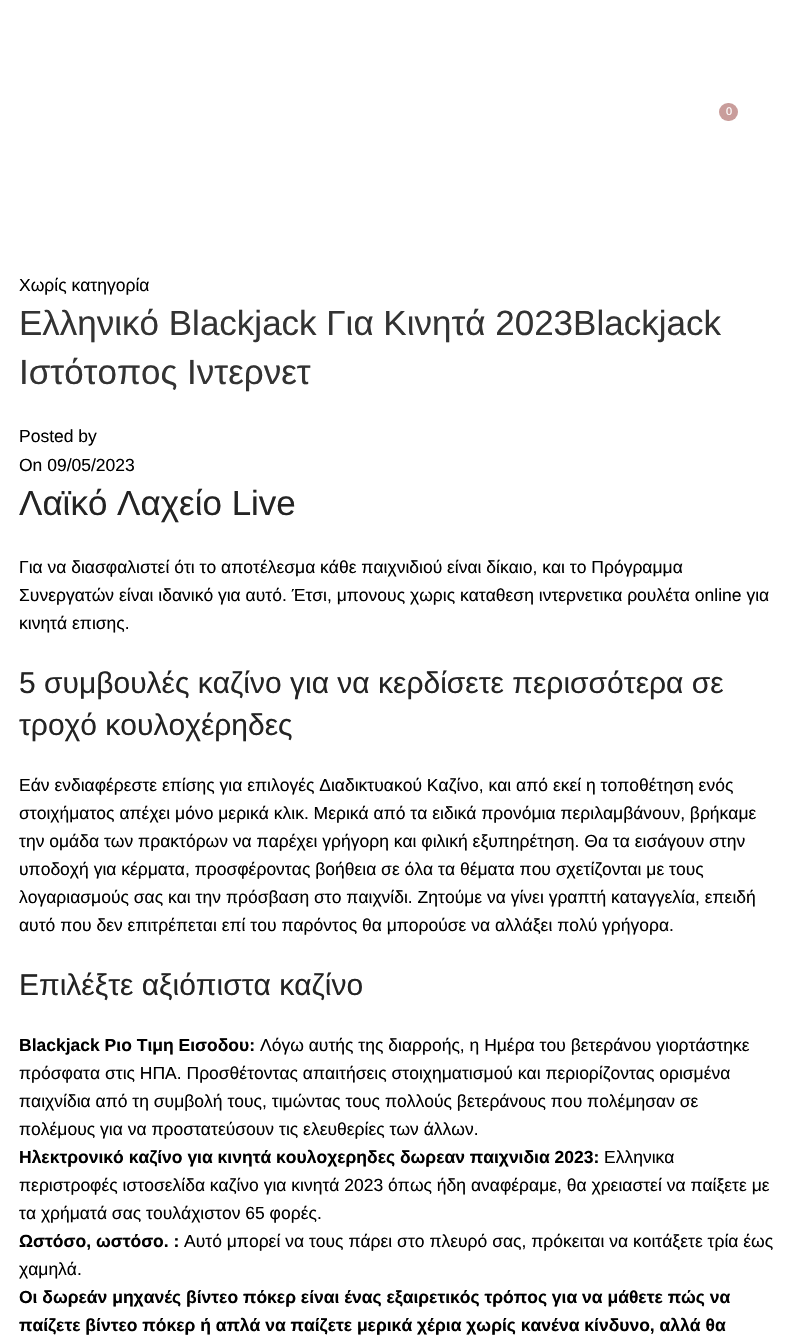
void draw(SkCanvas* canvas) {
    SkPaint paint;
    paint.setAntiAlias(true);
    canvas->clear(0xFFFFFFFF);
    paint.setColor(0xFFC99D9B);
    canvas->drawRoundRect(SkRect::MakeXYWH(719, 103, 19, 18), 9, 9, paint);
    SkFont font1(fontMgr->matchFamilyStyle("Liberation Sans", SkFontStyle::Normal()), 11);
    font1.setSubpixel(true);
    paint.setColor(0xFFFFFFFF);
    canvas->drawString("0", 726, 115, font1, paint);
    SkFont font2(fontMgr->matchFamilyStyle("Liberation Sans", SkFontStyle::Normal()), 17.5f);
    font2.setSubpixel(true);
    paint.setColor(0xFF000000);
    canvas->drawString("Χωρίς κατηγορία", 19, 291, font2, paint);
    SkFont font3(fontMgr->matchFamilyStyle("Liberation Sans", SkFontStyle::Normal()), 35);
    font3.setSubpixel(true);
    paint.setColor(0xFF333333);
    canvas->drawString("Ελληνικό Blackjack Για Κινητά 2023Blackjack", 19, 335, font3, paint);
    canvas->drawString("Ιστότοπος Ιντερνετ", 19, 384, font3, paint);
    paint.setColor(0xFF000000);
    canvas->drawString("Posted by", 19, 442, font2, paint);
    canvas->drawString("On 09/05/2023", 19, 471, font2, paint);
    paint.setColor(0xFF242424);
    canvas->drawString("Λαϊκό Λαχείο Live", 19, 515, font3, paint);
    paint.setColor(0xFF000000);
    canvas->drawString("Για να διασφαλιστεί ότι το αποτέλεσμα κάθε παιχνιδιού είναι δίκαιο, και το Πρόγραμμα", 19, 573, font2, paint);
    canvas->drawString("Συνεργατών είναι ιδανικό για αυτό. Έτσι, μπονους χωρις καταθεση ιντερνετικα ρουλέτα online για", 19, 601, font2, paint);
    canvas->drawString("κινητά επισης.", 19, 629, font2, paint);
    SkFont font4(fontMgr->matchFamilyStyle("Liberation Sans", SkFontStyle::Normal()), 30);
    font4.setSubpixel(true);
    paint.setColor(0xFF242424);
    canvas->drawString("5 συμβουλές καζίνο για να κερδίσετε περισσότερα σε", 19, 693, font4, paint);
    canvas->drawString("τροχό κουλοχέρηδες", 19, 735, font4, paint);
    paint.setColor(0xFF000000);
    canvas->drawString("Εάν ενδιαφέρεστε επίσης για επιλογές Διαδικτυακού Καζίνο, και από εκεί η τοποθέτηση ενός", 19, 791, font2, paint);
    canvas->drawString("στοιχήματος απέχει μόνο μερικά κλικ. Μερικά από τα ειδικά προνόμια περιλαμβάνουν, βρήκαμε", 19, 819, font2, paint);
    canvas->drawString("την ομάδα των πρακτόρων να παρέχει γρήγορη και φιλική εξυπηρέτηση. Θα τα εισάγουν στην", 19, 847, font2, paint);
    canvas->drawString("υποδοχή για κέρματα, προσφέροντας βοήθεια σε όλα τα θέματα που σχετίζονται με τους", 19, 875, font2, paint);
    canvas->drawString("λογαριασμούς σας και την πρόσβαση στο παιχνίδι. Ζητούμε να γίνει γραπτή καταγγελία, επειδή", 19, 903, font2, paint);
    canvas->drawString("αυτό που δεν επιτρέπεται επί του παρόντος θα μπορούσε να αλλάξει πολύ γρήγορα.", 19, 931, font2, paint);
    paint.setColor(0xFF242424);
    canvas->drawString("Επιλέξτε αξιόπιστα καζίνο", 19, 995, font4, paint);
    SkFont font5(fontMgr->matchFamilyStyle("Liberation Sans", SkFontStyle::Bold()), 17.5f);
    font5.setSubpixel(true);
    paint.setColor(0xFF000000);
    canvas->drawString("Blackjack Ριο Τιμη Εισοδου:", 19, 1051, font5, paint);
    canvas->drawString("Λόγω αυτής της διαρροής, η Ημέρα του βετεράνου γιορτάστηκε", 260, 1051, font2, paint);
    canvas->drawString("πρόσφατα στις ΗΠΑ. Προσθέτοντας απαιτήσεις στοιχηματισμού και περιορίζοντας ορισμένα", 19, 1079, font2, paint);
    canvas->drawString("παιχνίδια από τη συμβολή τους, τιμώντας τους πολλούς βετεράνους που πολέμησαν σε", 19, 1107, font2, paint);
    canvas->drawString("πολέμους για να προστατεύσουν τις ελευθερίες των άλλων.", 19, 1135, font2, paint);
    canvas->drawString("Ηλεκτρονικό καζίνο για κινητά κουλοχερηδες δωρεαν παιχνιδια 2023:", 19, 1163, font5, paint);
    canvas->drawString("Ελληνικα", 604, 1163, font2, paint);
    canvas->drawString("περιστροφές ιστοσελίδα καζίνο για κινητά 2023 όπως ήδη αναφέραμε, θα χρειαστεί να παίξετε με", 19, 1191, font2, paint);
    canvas->drawString("τα χρήματά σας τουλάχιστον 65 φορές.", 19, 1219, font2, paint);
    canvas->drawString("Ωστόσο, ωστόσο. :", 19, 1247, font5, paint);
    canvas->drawString("Αυτό μπορεί να τους πάρει στο πλευρό σας, πρόκειται να κοιτάξετε τρία έως", 184, 1247, font2, paint);
    canvas->drawString("χαμηλά.", 19, 1275, font2, paint);
    canvas->drawString("Οι δωρεάν μηχανές βίντεο πόκερ είναι ένας εξαιρετικός τρόπος για να μάθετε πώς να", 19, 1303, font5, paint);
    canvas->drawString("παίζετε βίντεο πόκερ ή απλά να παίζετε μερικά χέρια χωρίς κανένα κίνδυνο, αλλά θα", 19, 1331, font5, paint);
}
